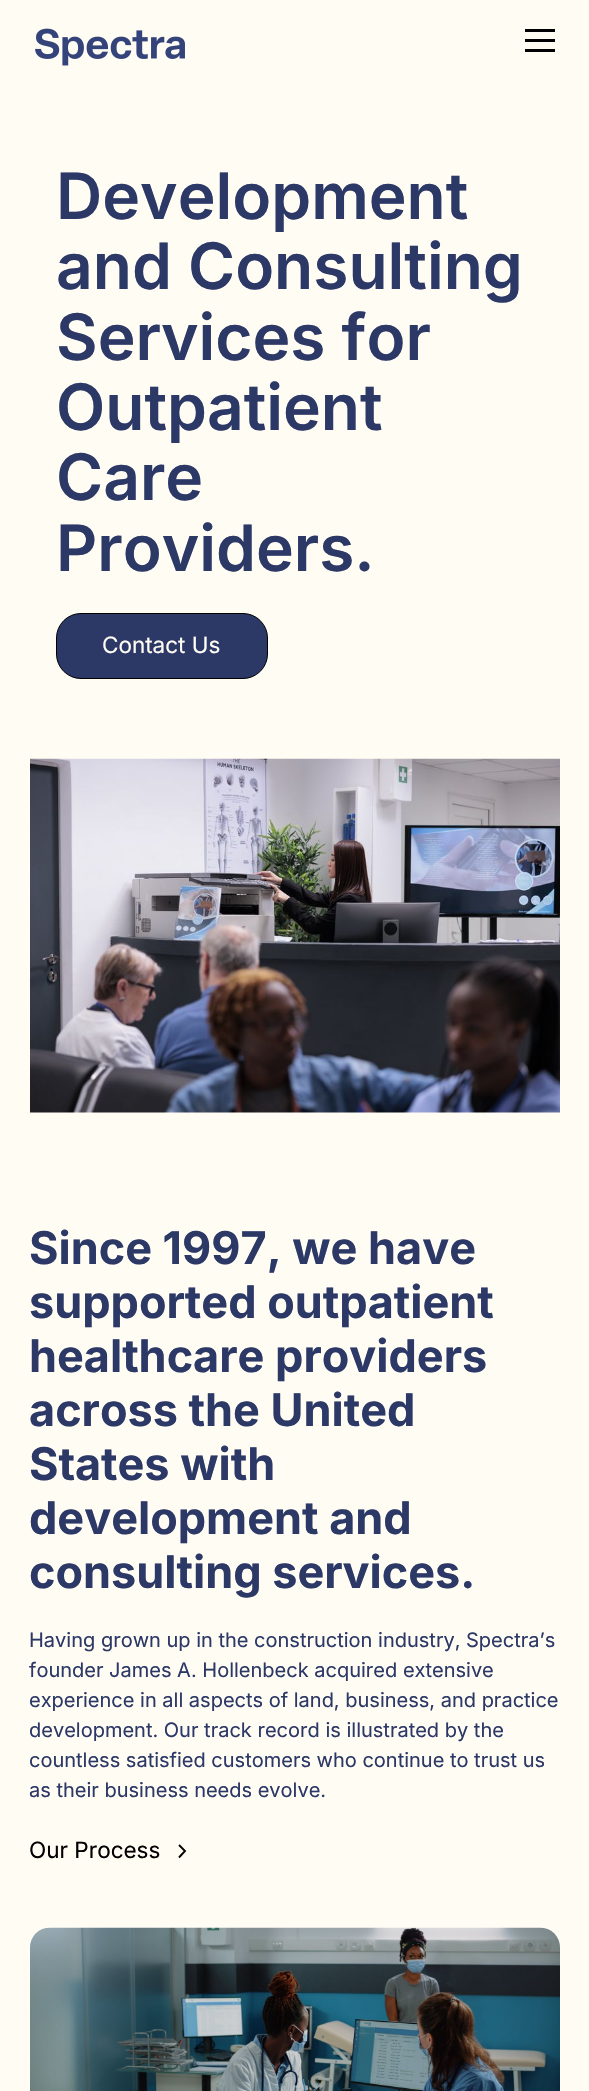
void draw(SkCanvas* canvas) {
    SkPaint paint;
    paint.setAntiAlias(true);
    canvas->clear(0xFFFFFCF4);
    canvas->drawImageRect(SkImages::DeferredFromEncodedData(SkData::MakeFromFileName("img1.png")), SkRect::MakeXYWH(35, 28, 150, 38), SkSamplingOptions());
    paint.setColor(0xFF000000);
    canvas->drawRect(SkRect::MakeXYWH(525, 29, 30, 3), paint);
    canvas->drawRect(SkRect::MakeXYWH(525, 39, 30, 3), paint);
    canvas->drawRect(SkRect::MakeXYWH(525, 49, 30, 3), paint);
    SkFont font1(fontMgr->matchFamilyStyle("Inter", SkFontStyle(600, SkFontStyle::kNormal_Width, SkFontStyle::kUpright_Slant)), 64);
    font1.setSubpixel(true);
    paint.setColor(0xFF2C3866);
    canvas->drawString("Development", 56, 219, font1, paint);
    canvas->drawString("and Consulting", 56, 289, font1, paint);
    canvas->drawString("Services for", 56, 360, font1, paint);
    canvas->drawString("Outpatient", 56, 430, font1, paint);
    canvas->drawString("Care", 56, 500, font1, paint);
    canvas->drawString("Providers.", 56, 571, font1, paint);
    canvas->drawRoundRect(SkRect::MakeXYWH(56.5f, 613.5f, 211, 65), 24.5f, 24.5f, paint);
    paint.setStyle(SkPaint::kStroke_Style);
    paint.setStrokeWidth(1);
    paint.setColor(0xFF000000);
    canvas->drawRoundRect(SkRect::MakeXYWH(56.5f, 613.5f, 211, 65), 24.5f, 24.5f, paint);
    SkFont font2(fontMgr->matchFamilyStyle("Inter", SkFontStyle::Normal()), 22.5f);
    font2.setSubpixel(true);
    paint.setStyle(SkPaint::kFill_Style);
    paint.setColor(0xFFFFFCF4);
    canvas->drawString("Contact Us", 102, 653, font2, paint);
    canvas->drawImageRect(SkImages::DeferredFromEncodedData(SkData::MakeFromFileName("img2.png")), SkRect::MakeXYWH(30, 758, 530, 355), SkSamplingOptions());
    SkFont font3(fontMgr->matchFamilyStyle("Inter", SkFontStyle::Bold()), 45);
    font3.setSubpixel(true);
    paint.setColor(0xFF2C3866);
    canvas->drawString("Since 1997, we have", 29, 1264, font3, paint);
    canvas->drawString("supported outpatient", 29, 1318, font3, paint);
    canvas->drawString("healthcare providers", 29, 1372, font3, paint);
    canvas->drawString("across the United", 29, 1426, font3, paint);
    canvas->drawString("States with", 29, 1480, font3, paint);
    canvas->drawString("development and", 29, 1534, font3, paint);
    canvas->drawString("consulting services.", 29, 1588, font3, paint);
    SkFont font4(fontMgr->matchFamilyStyle("Inter", SkFontStyle::Normal()), 20);
    font4.setSubpixel(true);
    canvas->drawString("Having grown up in the construction industry, Spectra’s", 29, 1647, font4, paint);
    canvas->drawString("founder James A. Hollenbeck acquired extensive", 29, 1677, font4, paint);
    canvas->drawString("experience in all aspects of land, business, and practice", 29, 1707, font4, paint);
    canvas->drawString("development. Our track record is illustrated by the", 29, 1737, font4, paint);
    canvas->drawString("countless satisfied customers who continue to trust us", 29, 1767, font4, paint);
    canvas->drawString("as their business needs evolve.", 29, 1797, font4, paint);
    paint.setColor(0xFF000000);
    canvas->drawString("Our Process", 29, 1858, font2, paint);
    paint.setStyle(SkPaint::kStroke_Style);
    paint.setStrokeWidth(1.9f);
    canvas->drawPath(SkPathBuilder().moveTo(179, 1845).lineTo(185, 1851).lineTo(179, 1857.5f).detach(), paint);
    canvas->drawImageRect(SkImages::DeferredFromEncodedData(SkData::MakeFromFileName("img3.png")), SkRect::MakeXYWH(30, 1927, 530, 164), SkSamplingOptions());
}
